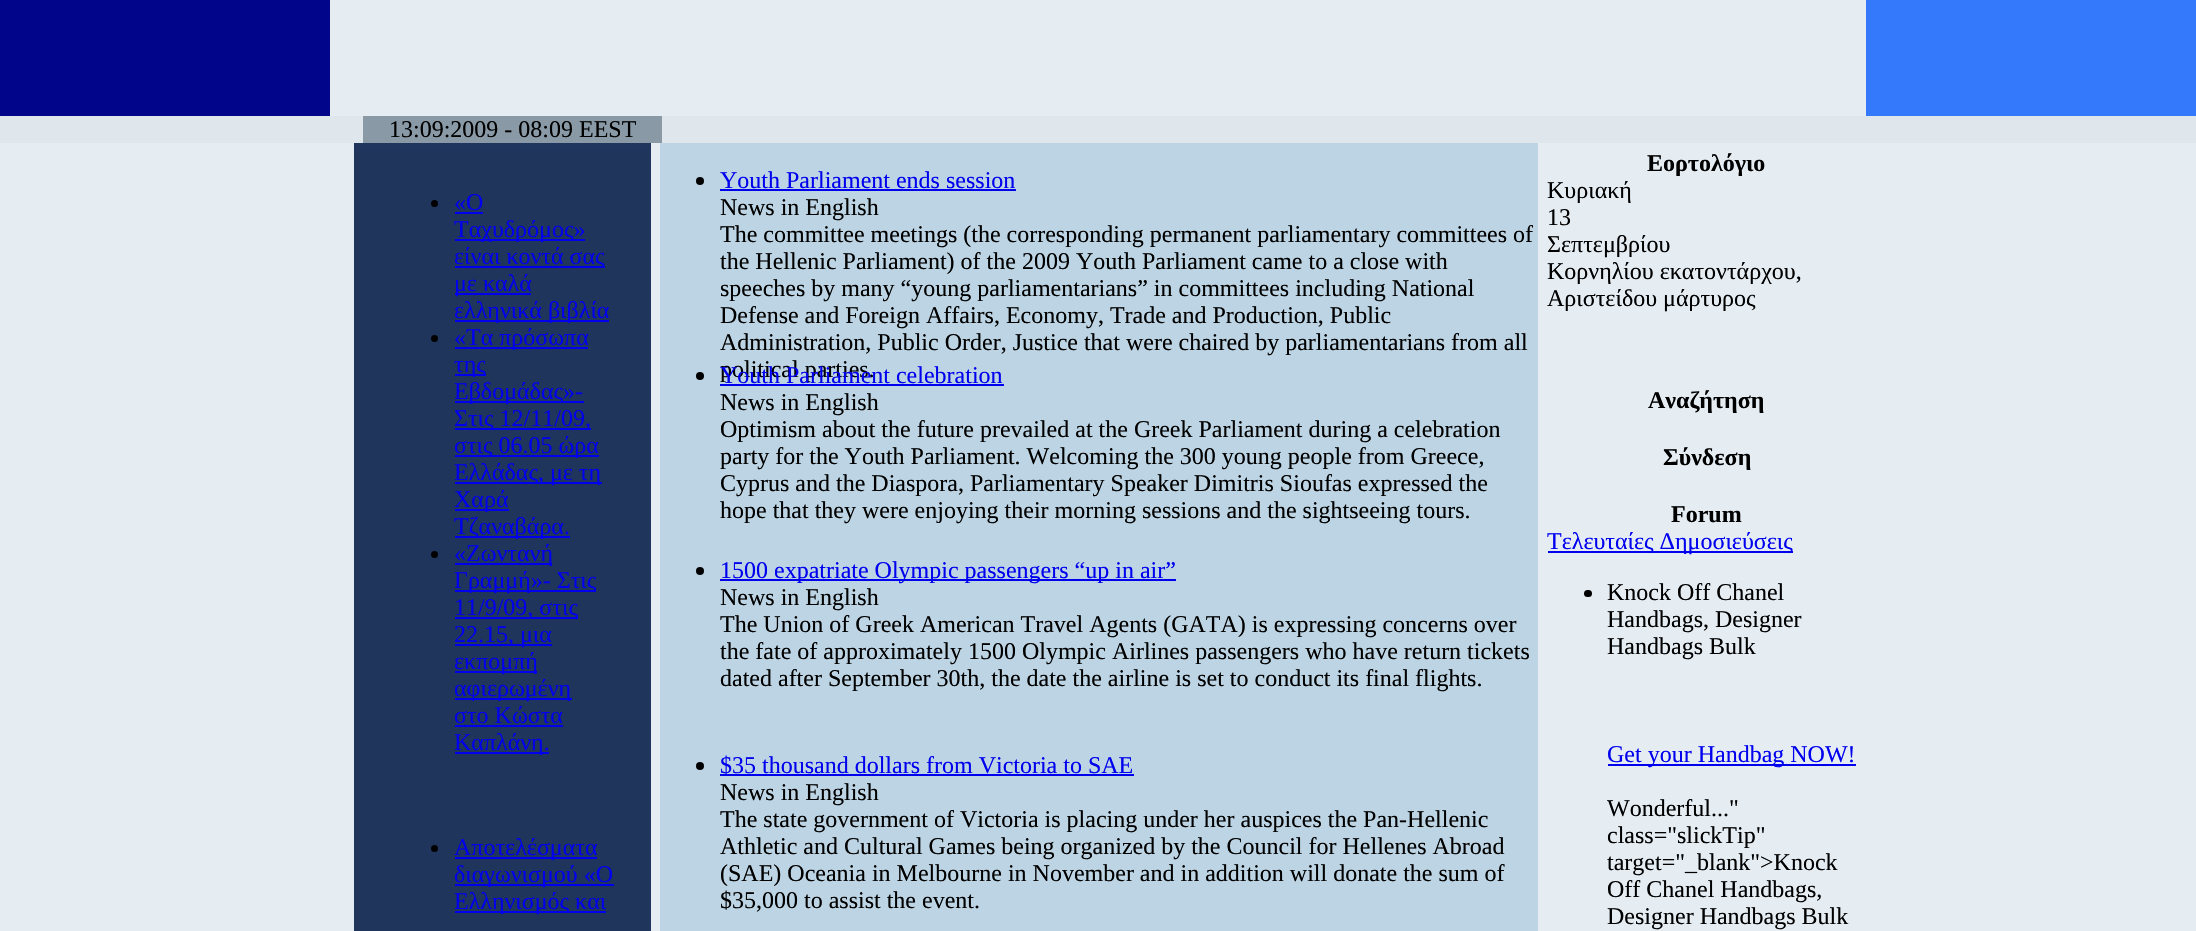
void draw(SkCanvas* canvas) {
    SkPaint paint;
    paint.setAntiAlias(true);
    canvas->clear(0xFFE5EDF3);
    paint.setColor(0xFF01058A);
    canvas->drawRect(SkRect::MakeXYWH(0, 0, 330, 116), paint);
    paint.setColor(0xFF3479FB);
    canvas->drawRect(SkRect::MakeXYWH(1866, 0, 330, 116), paint);
    paint.setColor(0xFFDFE7EC);
    canvas->drawRect(SkRect::MakeXYWH(0, 116, 2196, 27), paint);
    paint.setColor(0xFF899AA6);
    canvas->drawRect(SkRect::MakeXYWH(363, 116, 299, 27), paint);
    SkFont font1(fontMgr->matchFamilyStyle("Liberation Serif", SkFontStyle::Normal()), 24);
    font1.setSubpixel(true);
    paint.setColor(0xFF000000);
    canvas->drawString("13:09:2009 - 08:09 EEST", 389, 137, font1, paint);
    paint.setColor(0xFF21365E);
    canvas->drawRect(SkRect::MakeXYWH(354, 143, 297, 7), paint);
    paint.setColor(0xFF20355C);
    canvas->drawRect(SkRect::MakeXYWH(354, 150, 297, 781), paint);
    paint.setColor(0xFF000000);
    canvas->drawCircle(434.5f, 203.5f, 3.5f, paint);
    paint.setColor(0xFF0000EE);
    canvas->drawString("«Ο", 454, 210, font1, paint);
    canvas->drawRect(SkRect::MakeXYWH(455, 212, 28, 2), paint);
    canvas->drawRect(SkRect::MakeXYWH(455, 239, 130, 2), paint);
    canvas->drawString("Ταχυδρόμος»", 454, 237, font1, paint);
    canvas->drawRect(SkRect::MakeXYWH(455, 266, 150, 2), paint);
    canvas->drawString("είναι κοντά σας", 454, 264, font1, paint);
    canvas->drawRect(SkRect::MakeXYWH(455, 293, 76, 2), paint);
    canvas->drawString("με καλά", 454, 291, font1, paint);
    canvas->drawRect(SkRect::MakeXYWH(455, 320, 154, 2), paint);
    canvas->drawString("ελληνικά βιβλία", 454, 318, font1, paint);
    paint.setColor(0xFF000000);
    canvas->drawCircle(434.5f, 338.5f, 3.5f, paint);
    paint.setColor(0xFF0000EE);
    canvas->drawRect(SkRect::MakeXYWH(455, 347, 133, 2), paint);
    canvas->drawString("«Τα πρόσωπα", 454, 345, font1, paint);
    canvas->drawRect(SkRect::MakeXYWH(455, 374, 31, 2), paint);
    canvas->drawString("της", 454, 372, font1, paint);
    canvas->drawRect(SkRect::MakeXYWH(455, 401, 129, 2), paint);
    canvas->drawString("Εβδομάδας»-", 454, 399, font1, paint);
    canvas->drawRect(SkRect::MakeXYWH(455, 428, 136, 2), paint);
    canvas->drawString("Στις 12/11/09,", 454, 426, font1, paint);
    canvas->drawRect(SkRect::MakeXYWH(455, 455, 144, 2), paint);
    canvas->drawString("στις 06.05 ώρα", 454, 453, font1, paint);
    canvas->drawRect(SkRect::MakeXYWH(455, 482, 147, 2), paint);
    canvas->drawString("Ελλάδας, με τη", 454, 480, font1, paint);
    canvas->drawRect(SkRect::MakeXYWH(455, 509, 54, 2), paint);
    canvas->drawString("Χαρά", 454, 507, font1, paint);
    canvas->drawRect(SkRect::MakeXYWH(455, 536, 115, 2), paint);
    canvas->drawString("Τζαναβάρα.", 454, 534, font1, paint);
    paint.setColor(0xFF000000);
    canvas->drawCircle(434.5f, 554.5f, 3.5f, paint);
    paint.setColor(0xFF0000EE);
    canvas->drawRect(SkRect::MakeXYWH(455, 563, 97, 2), paint);
    canvas->drawString("«Ζωντανή", 454, 561, font1, paint);
    canvas->drawRect(SkRect::MakeXYWH(455, 590, 141, 2), paint);
    canvas->drawString("Γραμμή»- Στις", 454, 588, font1, paint);
    canvas->drawRect(SkRect::MakeXYWH(455, 617, 123, 2), paint);
    canvas->drawString("11/9/09, στις", 454, 615, font1, paint);
    canvas->drawRect(SkRect::MakeXYWH(455, 644, 97, 2), paint);
    canvas->drawString("22.15, μια", 454, 642, font1, paint);
    canvas->drawRect(SkRect::MakeXYWH(455, 671, 82, 2), paint);
    canvas->drawString("εκπομπή", 454, 669, font1, paint);
    canvas->drawRect(SkRect::MakeXYWH(455, 698, 117, 2), paint);
    canvas->drawString("αφιερωμένη", 454, 696, font1, paint);
    canvas->drawString("στο Κώστα", 454, 723, font1, paint);
    canvas->drawRect(SkRect::MakeXYWH(455, 725, 108, 2), paint);
    canvas->drawRect(SkRect::MakeXYWH(455, 752, 94, 2), paint);
    canvas->drawString("Καπλάνη.", 454, 750, font1, paint);
    paint.setColor(0xFF000000);
    canvas->drawCircle(434.5f, 848.5f, 3.5f, paint);
    paint.setColor(0xFF0000EE);
    canvas->drawRect(SkRect::MakeXYWH(455, 857, 142, 2), paint);
    canvas->drawString("Αποτελέσματα", 454, 855, font1, paint);
    canvas->drawRect(SkRect::MakeXYWH(455, 884, 159, 2), paint);
    canvas->drawString("διαγωνισμού «Ο", 454, 882, font1, paint);
    canvas->drawRect(SkRect::MakeXYWH(455, 911, 151, 2), paint);
    canvas->drawString("Ελληνισμός και", 454, 909, font1, paint);
    paint.setColor(0xFFBCD4E3);
    canvas->drawRect(SkRect::MakeXYWH(660, 143, 878, 788), paint);
    paint.setColor(0xFF000000);
    canvas->drawCircle(700, 181, 4, paint);
    paint.setColor(0xFF0000EE);
    canvas->drawString("Youth Parliament ends session", 720, 188, font1, paint);
    canvas->drawRect(SkRect::MakeXYWH(720, 189, 296, 2), paint);
    paint.setColor(0xFF000000);
    canvas->drawString("News in English", 720, 215, font1, paint);
    canvas->drawString("The committee meetings (the corresponding permanent parliamentary committees of", 720, 242, font1, paint);
    canvas->drawString("the Hellenic Parliament) of the 2009 Youth Parliament came to a close with", 720, 269, font1, paint);
    canvas->drawString("speeches by many “young parliamentarians” in committees including National", 720, 296, font1, paint);
    canvas->drawString("Defense and Foreign Affairs, Economy, Trade and Production, Public", 720, 323, font1, paint);
    canvas->drawString("Administration, Public Order, Justice that were chaired by parliamentarians from all", 720, 350, font1, paint);
    canvas->drawString("political parties.", 720, 377, font1, paint);
    canvas->drawCircle(700, 376, 4, paint);
    paint.setColor(0xFF0000EE);
    canvas->drawString("Youth Parliament celebration", 720, 383, font1, paint);
    canvas->drawRect(SkRect::MakeXYWH(720, 384, 284, 2), paint);
    paint.setColor(0xFF000000);
    canvas->drawString("News in English", 720, 410, font1, paint);
    canvas->drawString("Optimism about the future prevailed at the Greek Parliament during a celebration", 720, 437, font1, paint);
    canvas->drawString("party for the Youth Parliament. Welcoming the 300 young people from Greece,", 720, 464, font1, paint);
    canvas->drawString("Cyprus and the Diaspora, Parliamentary Speaker Dimitris Sioufas expressed the", 720, 491, font1, paint);
    canvas->drawString("hope that they were enjoying their morning sessions and the sightseeing tours.", 720, 518, font1, paint);
    canvas->drawCircle(700, 571, 4, paint);
    paint.setColor(0xFF0000EE);
    canvas->drawRect(SkRect::MakeXYWH(720, 579, 456, 2), paint);
    canvas->drawString("1500 expatriate Olympic passengers “up in air”", 720, 578, font1, paint);
    paint.setColor(0xFF000000);
    canvas->drawString("News in English", 720, 605, font1, paint);
    canvas->drawString("The Union of Greek American Travel Agents (GATA) is expressing concerns over", 720, 632, font1, paint);
    canvas->drawString("the fate of approximately 1500 Olympic Airlines passengers who have return tickets", 720, 659, font1, paint);
    canvas->drawString("dated after September 30th, the date the airline is set to conduct its final flights.", 720, 686, font1, paint);
    canvas->drawCircle(700, 766, 4, paint);
    paint.setColor(0xFF0000EE);
    canvas->drawRect(SkRect::MakeXYWH(720, 774, 414, 2), paint);
    canvas->drawString("$35 thousand dollars from Victoria to SAE", 720, 773, font1, paint);
    paint.setColor(0xFF000000);
    canvas->drawString("News in English", 720, 800, font1, paint);
    canvas->drawString("The state government of Victoria is placing under her auspices the Pan-Hellenic", 720, 827, font1, paint);
    canvas->drawString("Athletic and Cultural Games being organized by the Council for Hellenes Abroad", 720, 854, font1, paint);
    canvas->drawString("(SAE) Oceania in Melbourne in November and in addition will donate the sum of", 720, 881, font1, paint);
    canvas->drawString("$35,000 to assist the event.", 720, 908, font1, paint);
    SkFont font2(fontMgr->matchFamilyStyle("Liberation Serif", SkFontStyle::Bold()), 24);
    font2.setSubpixel(true);
    canvas->drawString("Εορτολόγιο", 1647, 171, font2, paint);
    canvas->drawString("Κυριακή", 1547, 198, font1, paint);
    canvas->drawString("13", 1547, 225, font1, paint);
    canvas->drawString("Σεπτεμβρίου", 1547, 252, font1, paint);
    canvas->drawString("Κορνηλίου εκατοντάρχου,", 1547, 279, font1, paint);
    canvas->drawString("Αριστείδου μάρτυρος", 1547, 306, font1, paint);
    canvas->drawString("Αναζήτηση", 1648, 408, font2, paint);
    canvas->drawString("Σύνδεση", 1663, 465, font2, paint);
    canvas->drawString("Forum", 1671, 522, font2, paint);
    paint.setColor(0xFF0000EE);
    canvas->drawRect(SkRect::MakeXYWH(1548, 551, 245, 2), paint);
    canvas->drawString("Τελευταίες Δημοσιεύσεις", 1547, 549, font1, paint);
    paint.setColor(0xFF000000);
    canvas->drawRoundRect(SkRect::MakeXYWH(1584, 590, 8, 7), 3.5f, 3.5f, paint);
    canvas->drawString("Knock Off Chanel", 1607, 600, font1, paint);
    canvas->drawString("Handbags, Designer", 1607, 627, font1, paint);
    canvas->drawString("Handbags Bulk", 1607, 654, font1, paint);
    paint.setColor(0xFF0000EE);
    canvas->drawRect(SkRect::MakeXYWH(1608, 764, 248, 2), paint);
    canvas->drawString("Get your Handbag NOW!", 1607, 762, font1, paint);
    paint.setColor(0xFF000000);
    canvas->drawString("Wonderful...\"", 1607, 816, font1, paint);
    canvas->drawString("class=\"slickTip\"", 1607, 843, font1, paint);
    canvas->drawString("target=\"_blank\">Knock", 1607, 870, font1, paint);
    canvas->drawString("Off Chanel Handbags,", 1607, 897, font1, paint);
    canvas->drawString("Designer Handbags Bulk", 1607, 924, font1, paint);
}
